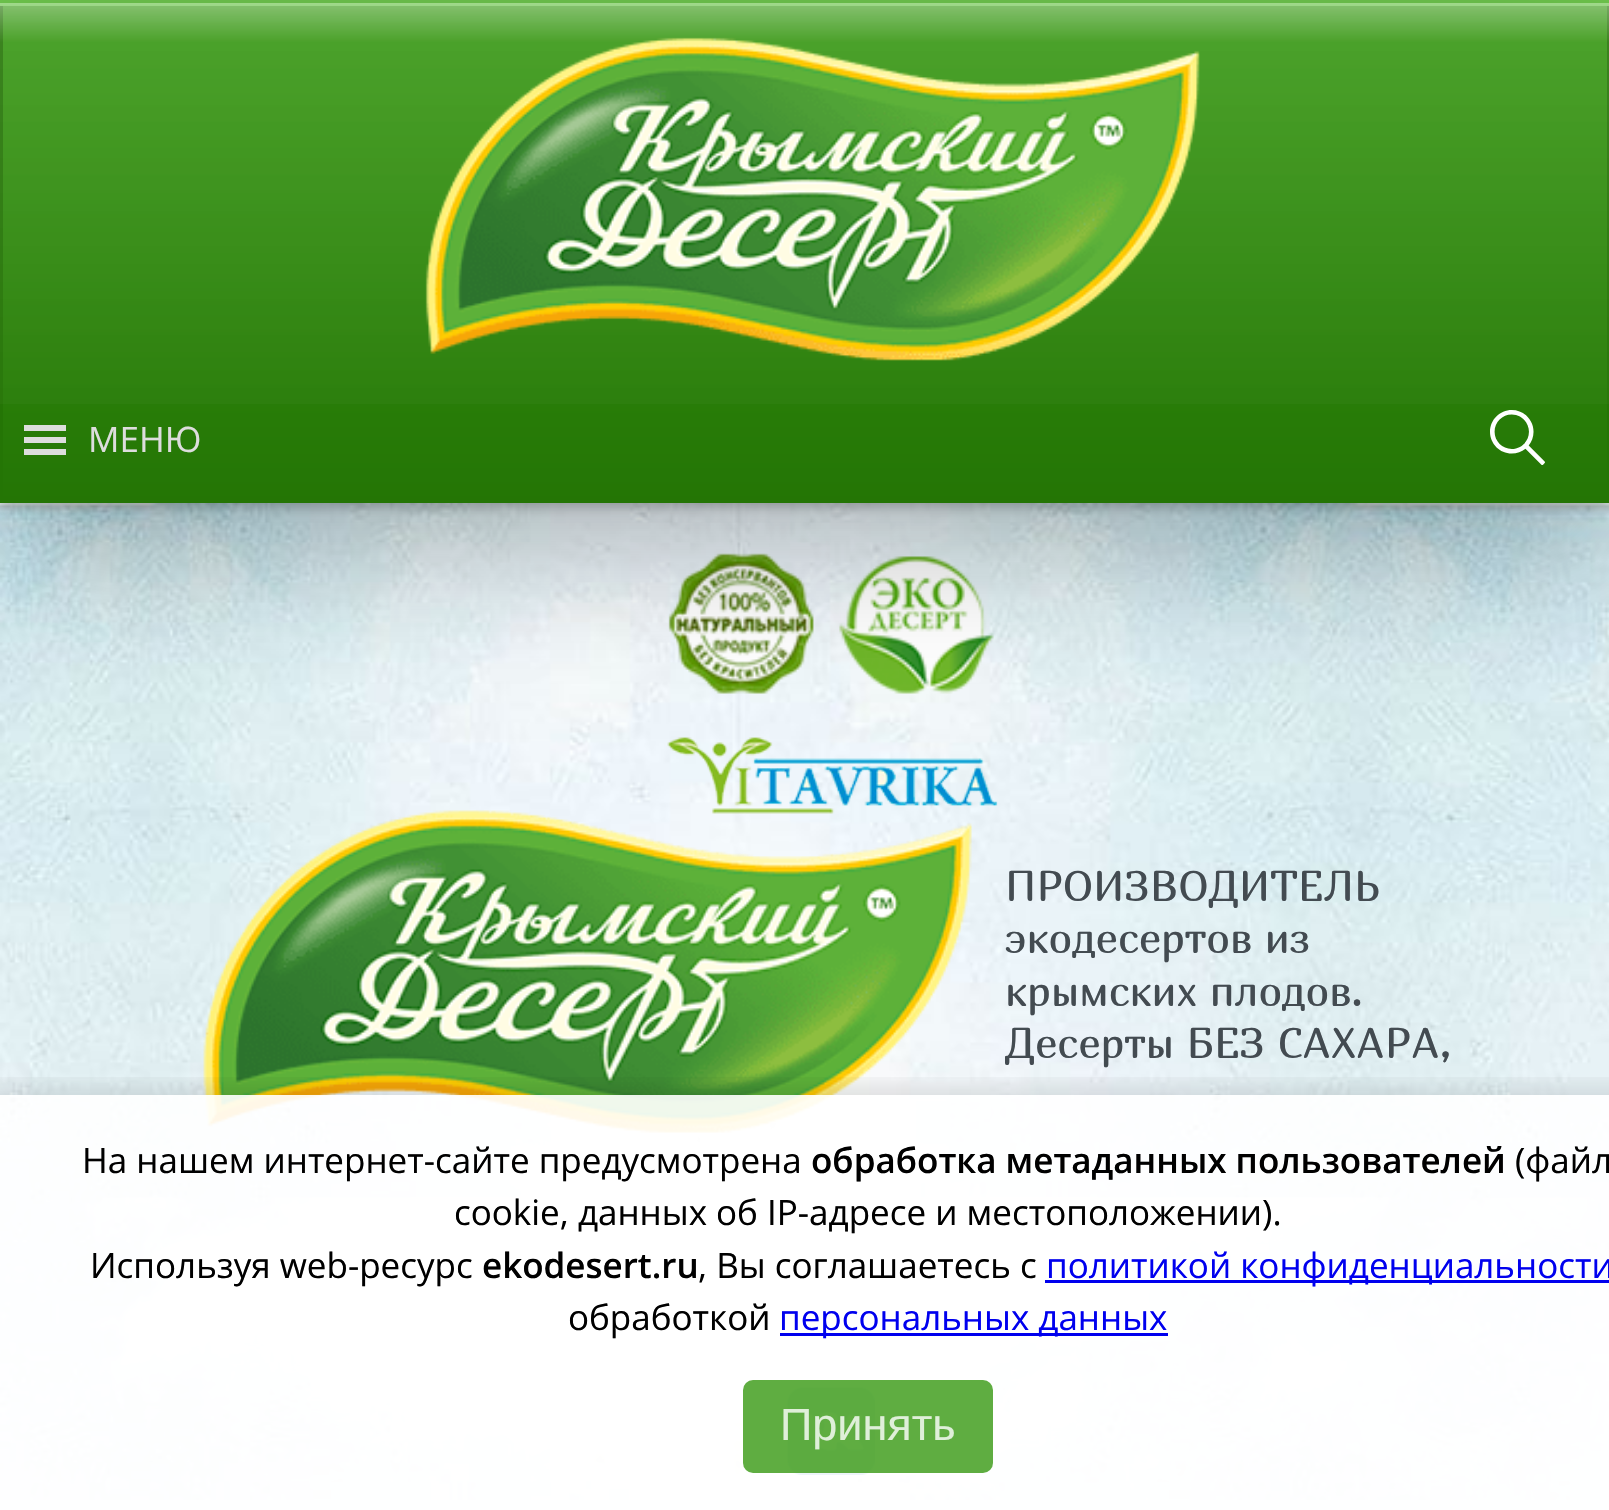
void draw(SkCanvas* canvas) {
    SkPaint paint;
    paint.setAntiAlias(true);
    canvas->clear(0xFFF0F9FF);
    canvas->drawImageRect(SkImages::DeferredFromEncodedData(SkData::MakeFromFileName("img3.png")), SkRect::MakeXYWH(0, 503, 1609, 997), SkSamplingOptions());
    paint.setColor(0x33000000);
    paint.setMaskFilter(SkMaskFilter::MakeBlur(kNormal_SkBlurStyle, 5));
    canvas->drawRect(SkRect::MakeXYWH(0, 5, 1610, 503), paint);
    paint.setMaskFilter(nullptr);
    {
        const SkColor colors[] = {0xFF379912, 0xFF247505};
        const float stops[] = {0, 1};
        const SkPoint ends[] = {{805, 2.5f}, {805, 503}};
        paint.setShader(SkGradientShader::MakeLinear(ends, colors, stops, 2, SkTileMode::kClamp));
        paint.setAlpha(255);
    }
    canvas->drawRect(SkRect::MakeXYWH(3, 6, 1604, 494), paint);
    paint.setStyle(SkPaint::kStroke_Style);
    paint.setStrokeWidth(3);
    paint.setShader(nullptr);
    paint.setColor(0xFF247505);
    canvas->drawRect(SkRect::MakeXYWH(1.5f, 4.5f, 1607, 497), paint);
    paint.setStyle(SkPaint::kFill_Style);
    paint.setColor(0xFF60BF3D);
    canvas->drawRect(SkRect::MakeXYWH(0, 3, 1609, 3), paint);
    paint.setColor(0xFF6DC44C);
    canvas->drawRect(SkRect::MakeXYWH(0, 0, 1609, 3), paint);
    canvas->drawImageRect(SkImages::DeferredFromEncodedData(SkData::MakeFromFileName("img4.png")), SkRect::MakeXYWH(668, 553, 146, 141), SkSamplingOptions());
    canvas->drawImageRect(SkImages::DeferredFromEncodedData(SkData::MakeFromFileName("img5.png")), SkRect::MakeXYWH(839, 556, 155, 138), SkSamplingOptions());
    canvas->drawImageRect(SkImages::DeferredFromEncodedData(SkData::MakeFromFileName("img6.png")), SkRect::MakeXYWH(667, 737, 331, 77), SkSamplingOptions());
    canvas->save();
    canvas->clipPath(SkPathBuilder(SkPathFillType::kEvenOdd).moveTo(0, 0).lineTo(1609, 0).lineTo(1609, 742).lineTo(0, 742).close().moveTo(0, 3).lineTo(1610, 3).lineTo(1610, 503).lineTo(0, 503).close().detach(), true);
    paint.setColor(0x40000000);
    paint.setMaskFilter(SkMaskFilter::MakeBlur(kNormal_SkBlurStyle, 62.5f));
    canvas->drawRect(SkRect::MakeXYWH(0, 53, 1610, 500), paint);
    paint.setMaskFilter(nullptr);
    canvas->restore();
    {
        const SkColor colors[] = {0x66FFFFFF, 0x1AFFFFFF, 0x00FFFFFF};
        const float stops[] = {0, 0.08f, 1};
        const SkPoint ends[] = {{805, 2.5f}, {805, 503}};
        paint.setShader(SkGradientShader::MakeLinear(ends, colors, stops, 3, SkTileMode::kClamp));
        paint.setAlpha(255);
    }
    canvas->drawRect(SkRect::MakeXYWH(0, 3, 1609, 401), paint);
    canvas->drawImageRect(SkImages::DeferredFromEncodedData(SkData::MakeFromFileName("img1.png")), SkRect::MakeXYWH(425, 37, 775, 324), SkSamplingOptions());
    paint.setShader(nullptr);
    paint.setColor(0xFFDDDDDD);
    canvas->drawPath(SkPathBuilder().moveTo(24, 455).lineTo(66, 455).lineTo(66, 449).lineTo(24, 449).close().moveTo(24, 425).lineTo(24, 431).lineTo(66, 431).lineTo(66, 425).close().moveTo(24, 443).lineTo(66, 443).lineTo(66, 437).lineTo(24, 437).close().detach(), paint);
    SkFont font1(fontMgr->matchFamilyStyle("Open Sans", SkFontStyle::Normal()), 35);
    font1.setSubpixel(true);
    canvas->drawString("МЕНЮ", 88, 452, font1, paint);
    canvas->drawImageRect(SkImages::DeferredFromEncodedData(SkData::MakeFromFileName("img2.png")), SkRect::MakeXYWH(1490, 410, 55, 55), SkSamplingOptions());
    canvas->drawImageRect(SkImages::DeferredFromEncodedData(SkData::MakeFromFileName("img7.png")), SkRect::MakeXYWH(203, 810, 769, 323), SkSamplingOptions());
    SkFont font2(fontMgr->matchFamilyStyle("Marmelad", SkFontStyle::Normal()), 42.5f);
    font2.setSubpixel(true);
    paint.setColor(0xFF434B51);
    canvas->drawString("ПРОИЗВОДИТЕЛЬ", 1005, 901, font2, paint);
    canvas->drawString("экодесертов из", 1005, 953, font2, paint);
    canvas->drawString("крымских плодов.", 1005, 1006, font2, paint);
    canvas->drawString("Десерты БЕЗ САХАРА,", 1005, 1058, font2, paint);
    canvas->drawImageRect(SkImages::DeferredFromEncodedData(SkData::MakeFromFileName("img8.png")), SkRect::MakeXYWH(51, 1197, 1547, 303), SkSamplingOptions());
    canvas->drawImageRect(SkImages::DeferredFromEncodedData(SkData::MakeFromFileName("img9.png")), SkRect::MakeXYWH(787, 1387, 88, 88), SkSamplingOptions());
    canvas->save();
    canvas->clipRect(SkRect::MakeXYWH(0, 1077, 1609, 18));
    paint.setColor(0x1A000000);
    paint.setMaskFilter(SkMaskFilter::MakeBlur(kNormal_SkBlurStyle, 10));
    canvas->drawRect(SkRect::MakeXYWH(-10, 1085, 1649, 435), paint);
    paint.setMaskFilter(nullptr);
    canvas->restore();
    paint.setColor(0xE6FFFFFF);
    canvas->drawRect(SkRect::MakeXYWH(0, 1095, 1609, 415), paint);
    paint.setColor(0xFF000000);
    canvas->drawString("На нашем интернет-сайте предусмотрена", 82, 1173, font1, paint);
    SkFont font3(fontMgr->matchFamilyStyle("Open Sans", SkFontStyle(600, SkFontStyle::kNormal_Width, SkFontStyle::kUpright_Slant)), 35);
    font3.setSubpixel(true);
    canvas->drawString("обработка метаданных пользователей", 811, 1173, font3, paint);
    canvas->drawString("(файл", 1515, 1173, font1, paint);
    canvas->drawString("cookie, данных об IP-адресе и местоположении).", 454, 1225, font1, paint);
    canvas->drawString("Используя web-ресурс", 90, 1278, font1, paint);
    canvas->drawString("ekodesert.ru", 482, 1278, font3, paint);
    canvas->drawString(", Вы соглашаетесь с", 698, 1278, font1, paint);
    paint.setColor(0xFF0000EE);
    canvas->drawRect(SkRect::MakeXYWH(1045, 1280, 564, 3), paint);
    canvas->drawString("политикой конфиденциальности", 1046, 1278, font1, paint);
    paint.setColor(0xFF000000);
    canvas->drawString("обработкой", 568, 1330, font1, paint);
    paint.setColor(0xFF0000EE);
    canvas->drawRect(SkRect::MakeXYWH(780, 1333, 388, 3), paint);
    canvas->drawString("персональных данных", 779, 1330, font1, paint);
    paint.setColor(0xCC379912);
    canvas->drawRoundRect(SkRect::MakeXYWH(743, 1380, 250, 93), 10, 10, paint);
    SkFont font4(fontMgr->matchFamilyStyle("Liberation Sans", SkFontStyle::Normal()), 45);
    font4.setSubpixel(true);
    paint.setColor(0xFFDFEFD9);
    canvas->drawString("Принять", 780, 1440, font4, paint);
}
